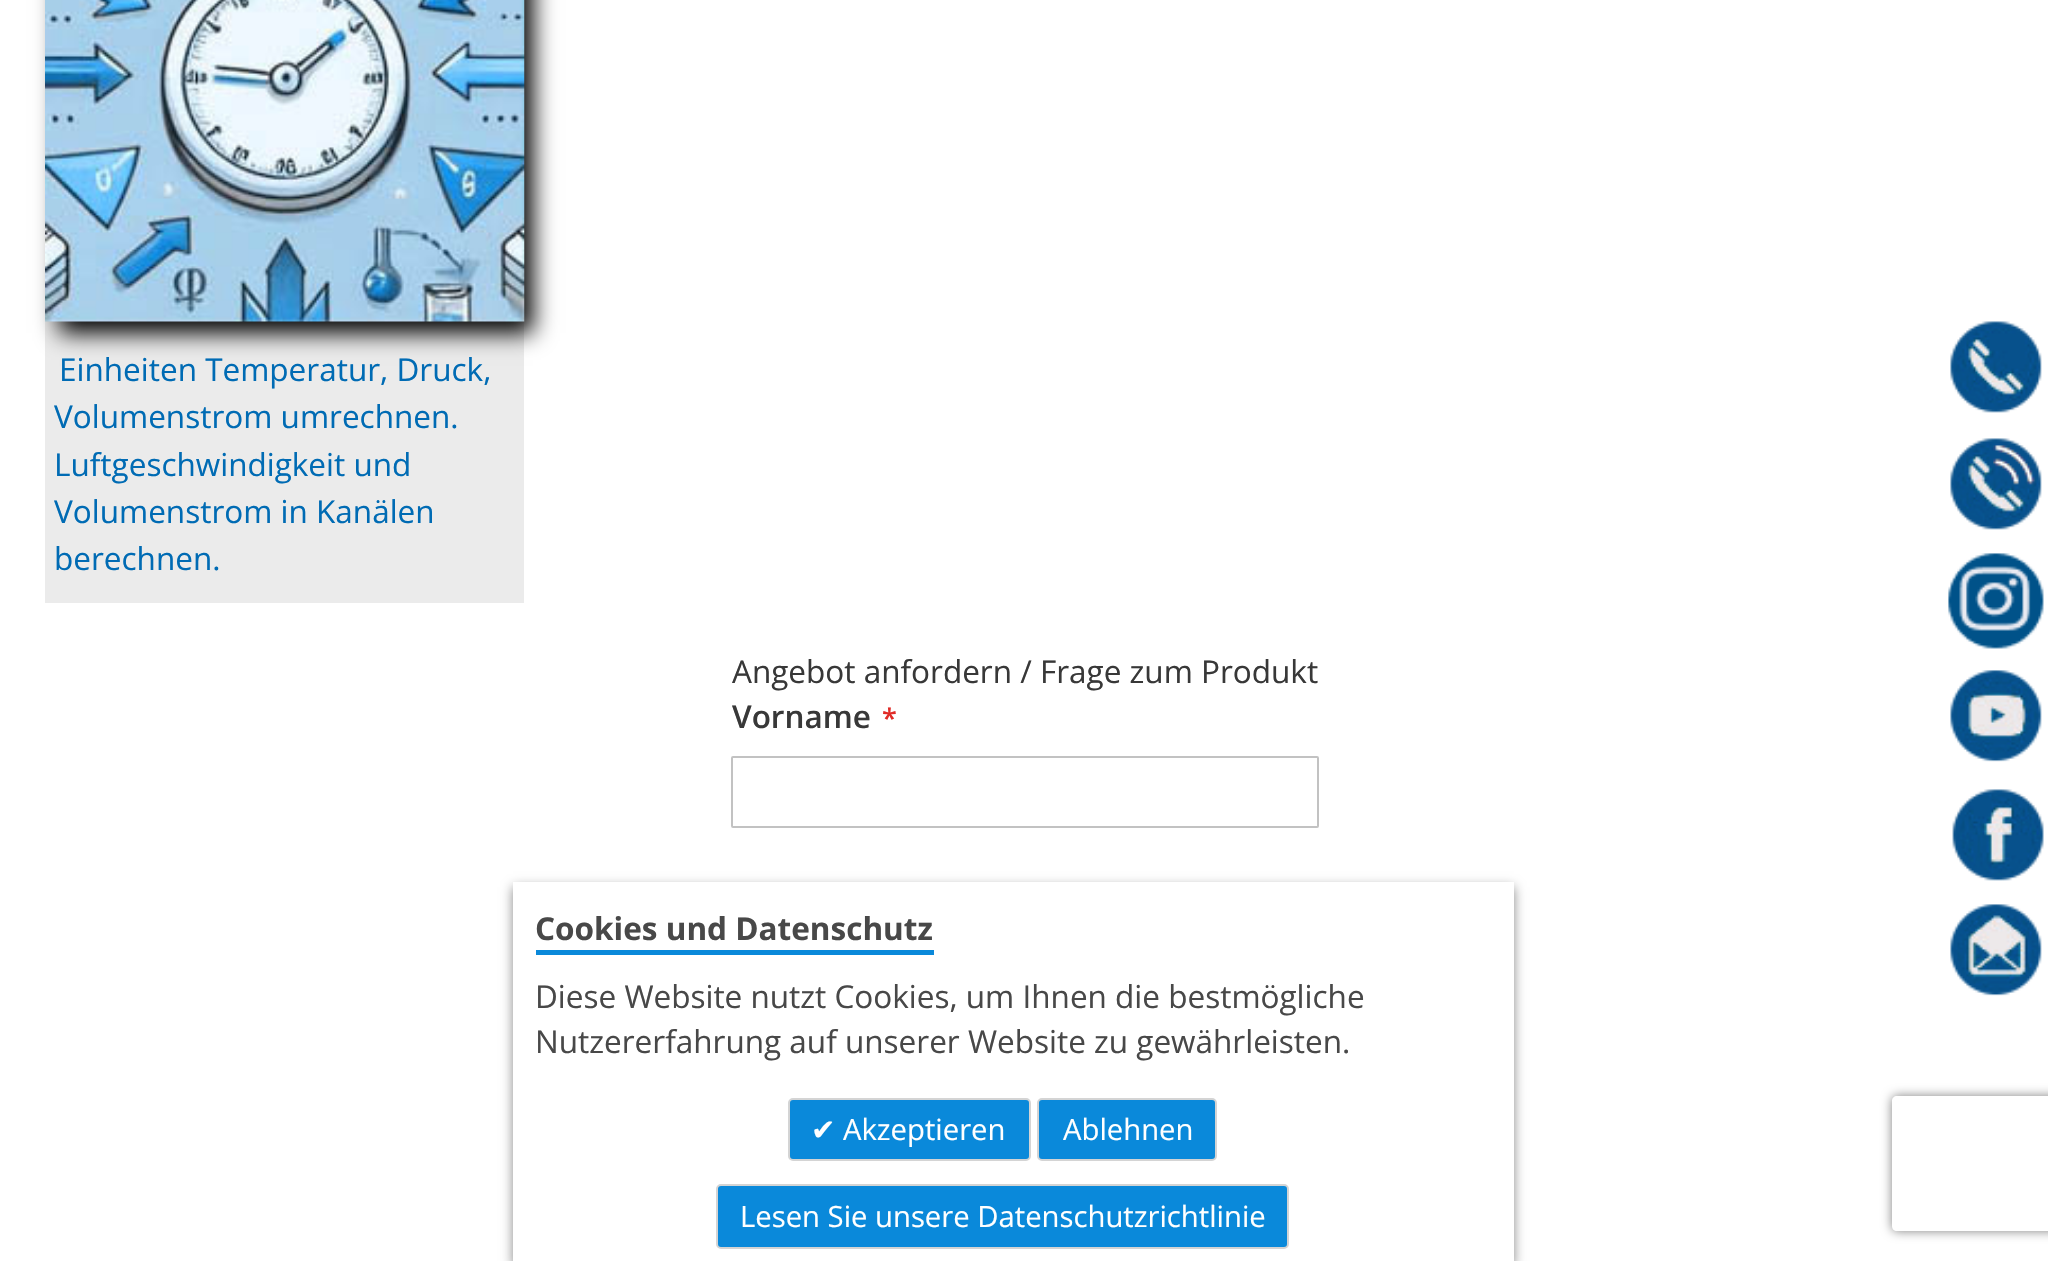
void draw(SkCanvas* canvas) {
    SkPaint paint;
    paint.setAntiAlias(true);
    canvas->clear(0xFFFFFFFF);
    paint.setColor(0xFFEBEBEB);
    canvas->drawRect(SkRect::MakeXYWH(45, 321, 479, 282), paint);
    paint.setColor(0xFF000000);
    paint.setMaskFilter(SkMaskFilter::MakeBlur(kNormal_SkBlurStyle, 11));
    canvas->drawRect(SkRect::MakeXYWH(59, -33, 474, 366), paint);
    paint.setMaskFilter(nullptr);
    canvas->drawImageRect(SkImages::DeferredFromEncodedData(SkData::MakeFromFileName("img1.png")), SkRect::MakeXYWH(45, 0, 480, 322), SkSamplingOptions());
    SkFont font1(fontMgr->matchFamilyStyle("Open Sans", SkFontStyle::Normal()), 31.5f);
    font1.setSubpixel(true);
    paint.setColor(0xFF006BB4);
    canvas->drawString("Einheiten Temperatur, Druck,", 59, 381, font1, paint);
    canvas->drawString("Volumenstrom umrechnen.", 54, 428, font1, paint);
    canvas->drawString("Luftgeschwindigkeit und", 54, 476, font1, paint);
    canvas->drawString("Volumenstrom in Kanälen", 54, 523, font1, paint);
    canvas->drawString("berechnen.", 54, 570, font1, paint);
    canvas->drawImageRect(SkImages::DeferredFromEncodedData(SkData::MakeFromFileName("img2.png")), SkRect::MakeXYWH(1950, 321, 92, 92), SkSamplingOptions());
    canvas->drawImageRect(SkImages::DeferredFromEncodedData(SkData::MakeFromFileName("img3.png")), SkRect::MakeXYWH(1950, 438, 92, 92), SkSamplingOptions());
    canvas->drawImageRect(SkImages::DeferredFromEncodedData(SkData::MakeFromFileName("img4.png")), SkRect::MakeXYWH(1948, 553, 96, 96), SkSamplingOptions());
    canvas->drawImageRect(SkImages::DeferredFromEncodedData(SkData::MakeFromFileName("img5.png")), SkRect::MakeXYWH(1950, 670, 92, 92), SkSamplingOptions());
    canvas->drawImageRect(SkImages::DeferredFromEncodedData(SkData::MakeFromFileName("img6.png")), SkRect::MakeXYWH(1952, 789, 92, 92), SkSamplingOptions());
    canvas->drawImageRect(SkImages::DeferredFromEncodedData(SkData::MakeFromFileName("img7.png")), SkRect::MakeXYWH(1950, 904, 92, 92), SkSamplingOptions());
    paint.setColor(0xFF383838);
    canvas->drawString("Angebot anfordern / Frage zum Produkt", 732, 683, font1, paint);
    SkFont font2(fontMgr->matchFamilyStyle("Open Sans", SkFontStyle(600, SkFontStyle::kNormal_Width, SkFontStyle::kUpright_Slant)), 31.5f);
    font2.setSubpixel(true);
    canvas->drawString("Vorname", 732, 728, font2, paint);
    SkFont font3(fontMgr->matchFamilyStyle("Open Sans", SkFontStyle(600, SkFontStyle::kNormal_Width, SkFontStyle::kUpright_Slant)), 27);
    font3.setSubpixel(true);
    paint.setColor(0xFFE02B27);
    canvas->drawString("*", 882, 728, font3, paint);
    paint.setStyle(SkPaint::kStroke_Style);
    paint.setStrokeWidth(2);
    paint.setColor(0xFFC2C2C2);
    canvas->drawRoundRect(SkRect::MakeXYWH(732, 757, 586, 70), 1, 1, paint);
    canvas->save();
    canvas->clipPath(SkPathBuilder(SkPathFillType::kEvenOdd).moveTo(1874, 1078).lineTo(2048, 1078).lineTo(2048, 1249).lineTo(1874, 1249).close().moveTo(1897, 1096).lineTo(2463, 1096).cubicTo(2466, 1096, 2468, 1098, 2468, 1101).lineTo(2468, 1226).cubicTo(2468, 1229, 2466, 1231, 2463, 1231).lineTo(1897, 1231).cubicTo(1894, 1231, 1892, 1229, 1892, 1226).lineTo(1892, 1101).cubicTo(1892, 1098, 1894, 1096, 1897, 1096).close().detach(), true);
    paint.setStyle(SkPaint::kFill_Style);
    paint.setColor(0xFF808080);
    paint.setMaskFilter(SkMaskFilter::MakeBlur(kNormal_SkBlurStyle, 5.5f));
    canvas->drawRoundRect(SkRect::MakeXYWH(1892, 1096, 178, 135), 5, 5, paint);
    paint.setMaskFilter(nullptr);
    canvas->restore();
    paint.setColor(0x78000000);
    paint.setMaskFilter(SkMaskFilter::MakeBlur(kNormal_SkBlurStyle, 5.5f));
    canvas->drawRect(SkRect::MakeXYWH(513, 887, 1001, 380), paint);
    paint.setMaskFilter(nullptr);
    paint.setColor(0xFFFFFFFF);
    canvas->drawRect(SkRect::MakeXYWH(513, 882, 1001, 379), paint);
    SkFont font4(fontMgr->matchFamilyStyle("Open Sans", SkFontStyle::Bold()), 31.5f);
    font4.setSubpixel(true);
    paint.setColor(0xFF484848);
    canvas->drawString("Cookies und Datenschutz", 535, 940, font4, paint);
    paint.setColor(0xFF0A89DA);
    canvas->drawRect(SkRect::MakeXYWH(536, 950, 398, 5), paint);
    paint.setColor(0xFF484848);
    canvas->drawString("Diese Website nutzt Cookies, um Ihnen die bestmögliche", 535, 1008, font1, paint);
    canvas->drawString("Nutzererfahrung auf unserer Website zu gewährleisten.", 535, 1053, font1, paint);
    paint.setColor(0xFF0A89DA);
    canvas->drawRoundRect(SkRect::MakeXYWH(789, 1099, 241, 61), 4, 4, paint);
    paint.setStyle(SkPaint::kStroke_Style);
    paint.setColor(0xFFD4D4D4);
    canvas->drawRoundRect(SkRect::MakeXYWH(789, 1099, 241, 61), 4, 4, paint);
    SkFont font5(fontMgr->matchFamilyStyle("DejaVu Sans", SkFontStyle::Normal()), 29.25f);
    font5.setSubpixel(true);
    paint.setStyle(SkPaint::kFill_Style);
    paint.setColor(0xFFFFFFFF);
    canvas->drawString("✔", 811, 1140, font5, paint);
    SkFont font6(fontMgr->matchFamilyStyle("Open Sans", SkFontStyle::Normal()), 29.25f);
    font6.setSubpixel(true);
    canvas->drawString("Akzeptieren", 843, 1140, font6, paint);
    paint.setColor(0xFF0A89DA);
    canvas->drawRoundRect(SkRect::MakeXYWH(1038, 1099, 178, 61), 4, 4, paint);
    paint.setStyle(SkPaint::kStroke_Style);
    paint.setColor(0xFFD4D4D4);
    canvas->drawRoundRect(SkRect::MakeXYWH(1038, 1099, 178, 61), 4, 4, paint);
    paint.setStyle(SkPaint::kFill_Style);
    paint.setColor(0xFFFFFFFF);
    canvas->drawString("Ablehnen", 1063, 1140, font6, paint);
    paint.setColor(0xFF0A89DA);
    canvas->drawRoundRect(SkRect::MakeXYWH(717, 1185, 571, 63), 4, 4, paint);
    paint.setStyle(SkPaint::kStroke_Style);
    paint.setColor(0xFFD4D4D4);
    canvas->drawRoundRect(SkRect::MakeXYWH(717, 1185, 571, 63), 4, 4, paint);
    paint.setStyle(SkPaint::kFill_Style);
    paint.setColor(0xFFFFFFFF);
    canvas->drawString("Lesen Sie unsere Datenschutzrichtlinie", 740, 1227, font6, paint);
}
